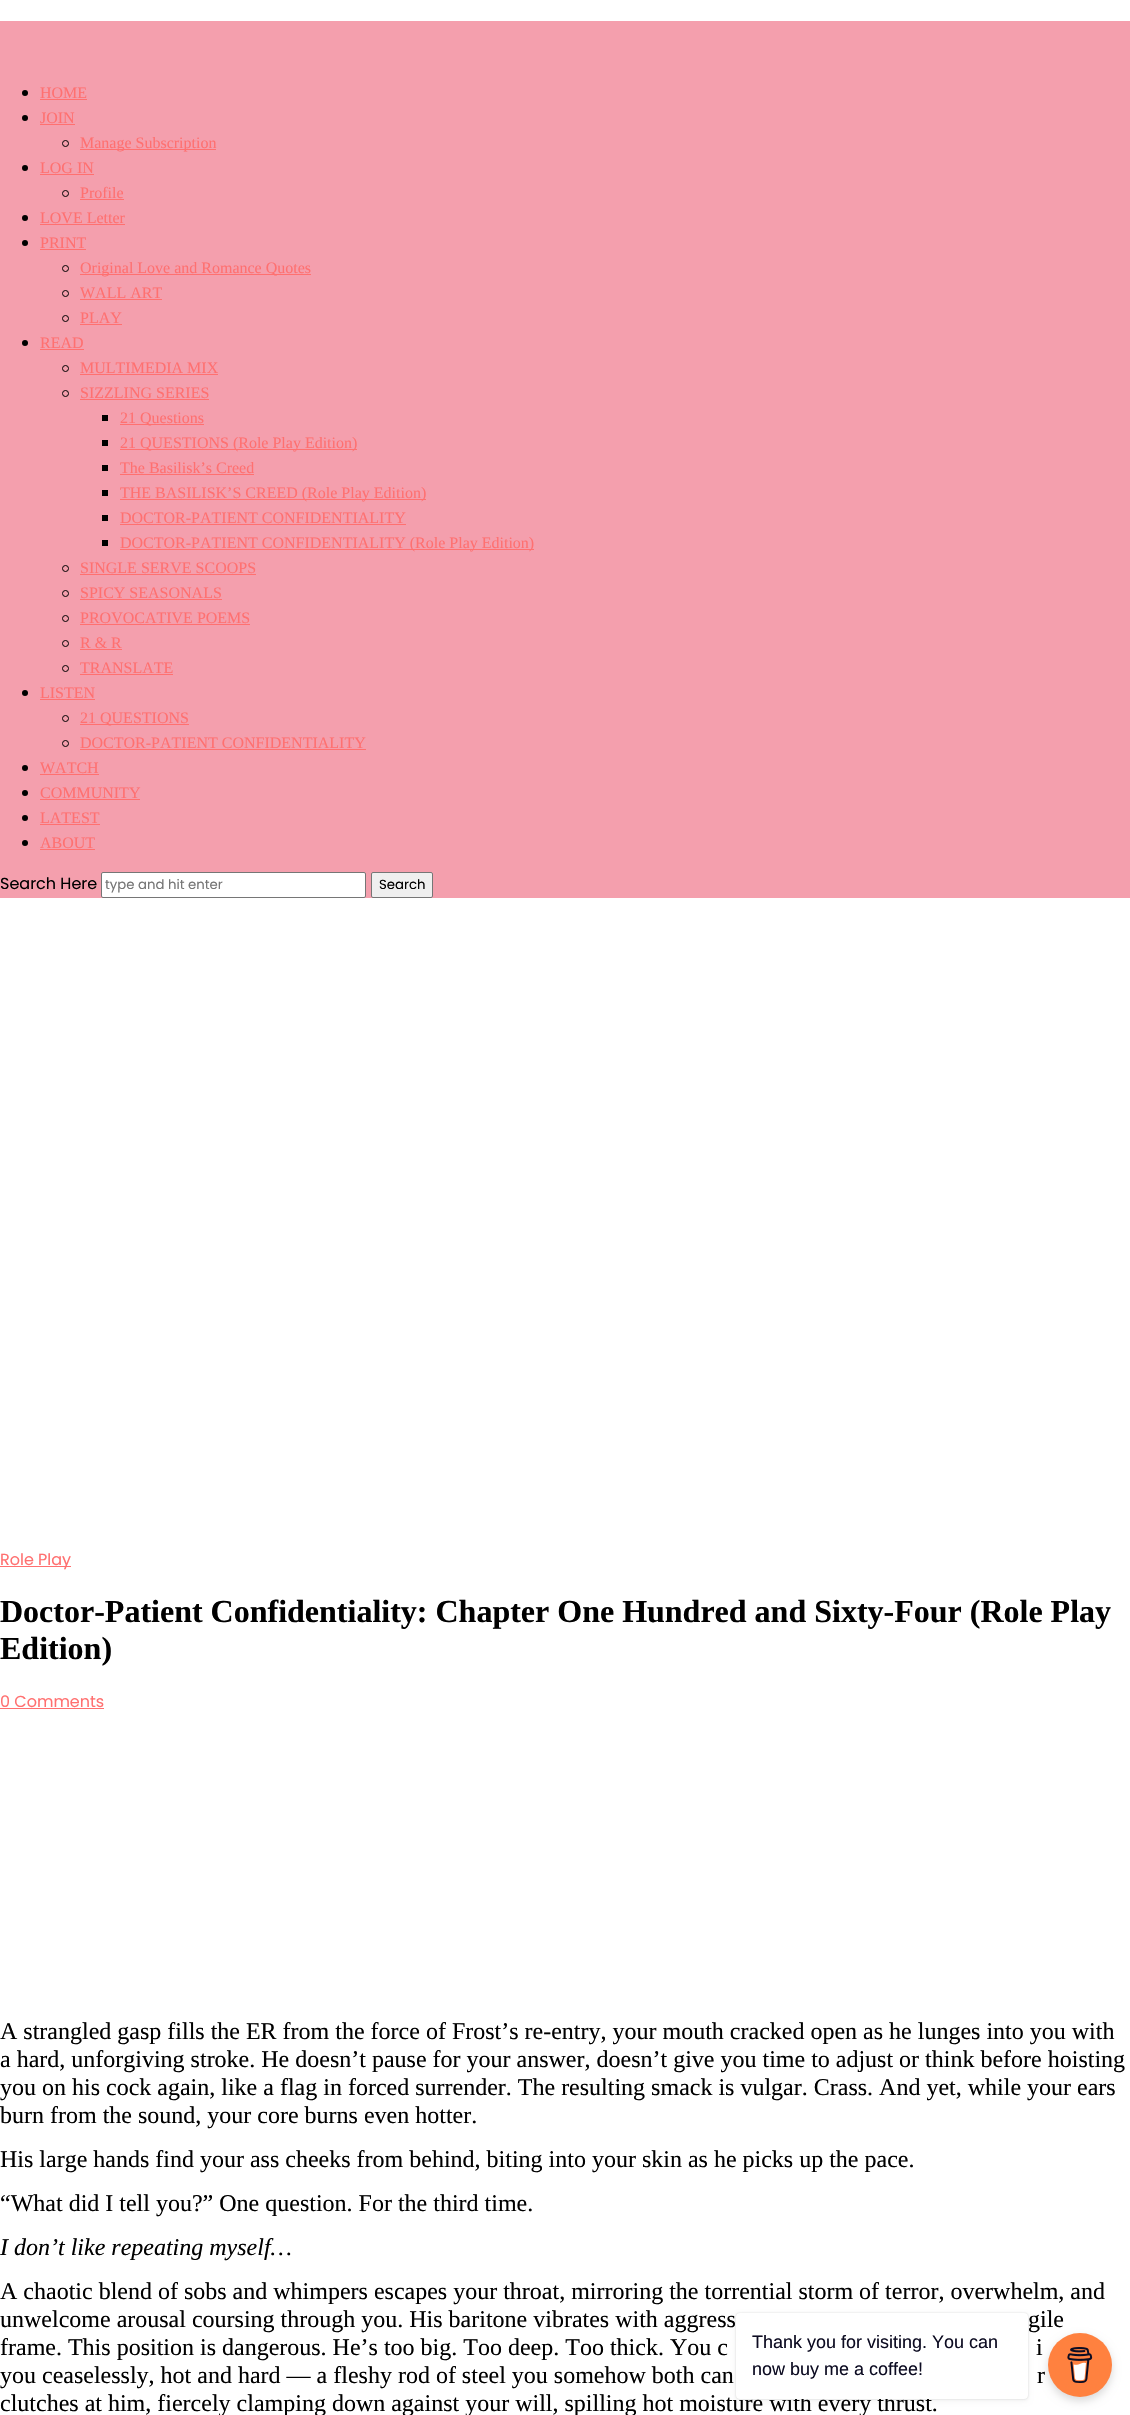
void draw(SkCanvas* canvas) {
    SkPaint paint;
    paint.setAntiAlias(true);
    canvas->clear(0xFFFFFFFF);
    paint.setColor(0xFFF49FAD);
    canvas->drawRect(SkRect::MakeXYWH(0, 21, 1130, 877), paint);
    paint.setColor(0xFF000000);
    canvas->drawCircle(25, 93, 3, paint);
    SkFont font1(fontMgr->matchFamilyStyle("Liberation Serif", SkFontStyle::Normal()), 16);
    font1.setSubpixel(true);
    paint.setColor(0xFFFF7070);
    canvas->drawString("HOME", 40, 98, font1, paint);
    canvas->drawRect(SkRect::MakeXYWH(40, 99, 47, 1), paint);
    paint.setColor(0xFF000000);
    canvas->drawCircle(25, 118, 3, paint);
    paint.setColor(0xFFFF7070);
    canvas->drawString("JOIN", 40, 123, font1, paint);
    canvas->drawRect(SkRect::MakeXYWH(40, 124, 35, 1), paint);
    paint.setStyle(SkPaint::kStroke_Style);
    paint.setStrokeWidth(1);
    paint.setColor(0xFF000000);
    canvas->drawCircle(65.5f, 143.5f, 3, paint);
    paint.setStyle(SkPaint::kFill_Style);
    paint.setColor(0xFFFF7070);
    canvas->drawRect(SkRect::MakeXYWH(80, 149, 136, 1), paint);
    canvas->drawString("Manage Subscription", 80, 148, font1, paint);
    paint.setColor(0xFF000000);
    canvas->drawCircle(25, 168, 3, paint);
    paint.setColor(0xFFFF7070);
    canvas->drawString("LOG IN", 40, 173, font1, paint);
    canvas->drawRect(SkRect::MakeXYWH(40, 174, 54, 1), paint);
    paint.setStyle(SkPaint::kStroke_Style);
    paint.setColor(0xFF000000);
    canvas->drawCircle(65.5f, 193.5f, 3, paint);
    paint.setStyle(SkPaint::kFill_Style);
    paint.setColor(0xFFFF7070);
    canvas->drawString("Profile", 80, 198, font1, paint);
    canvas->drawRect(SkRect::MakeXYWH(80, 199, 44, 1), paint);
    paint.setColor(0xFF000000);
    canvas->drawCircle(25, 218, 3, paint);
    paint.setColor(0xFFFF7070);
    canvas->drawString("LOVE Letter", 40, 223, font1, paint);
    canvas->drawRect(SkRect::MakeXYWH(40, 224, 85, 1), paint);
    paint.setColor(0xFF000000);
    canvas->drawCircle(25, 243, 3, paint);
    paint.setColor(0xFFFF7070);
    canvas->drawString("PRINT", 40, 248, font1, paint);
    canvas->drawRect(SkRect::MakeXYWH(40, 249, 46, 1), paint);
    paint.setStyle(SkPaint::kStroke_Style);
    paint.setColor(0xFF000000);
    canvas->drawCircle(65.5f, 268.5f, 3, paint);
    paint.setStyle(SkPaint::kFill_Style);
    paint.setColor(0xFFFF7070);
    canvas->drawRect(SkRect::MakeXYWH(80, 274, 231, 1), paint);
    canvas->drawString("Original Love and Romance Quotes", 80, 273, font1, paint);
    paint.setStyle(SkPaint::kStroke_Style);
    paint.setColor(0xFF000000);
    canvas->drawCircle(65.5f, 293.5f, 3, paint);
    paint.setStyle(SkPaint::kFill_Style);
    paint.setColor(0xFFFF7070);
    canvas->drawString("WALL ART", 80, 298, font1, paint);
    canvas->drawRect(SkRect::MakeXYWH(80, 299, 82, 1), paint);
    paint.setStyle(SkPaint::kStroke_Style);
    paint.setColor(0xFF000000);
    canvas->drawCircle(65.5f, 318.5f, 3, paint);
    paint.setStyle(SkPaint::kFill_Style);
    paint.setColor(0xFFFF7070);
    canvas->drawString("PLAY", 80, 323, font1, paint);
    canvas->drawRect(SkRect::MakeXYWH(80, 324, 42, 1), paint);
    paint.setColor(0xFF000000);
    canvas->drawCircle(25, 343, 3, paint);
    paint.setColor(0xFFFF7070);
    canvas->drawString("READ", 40, 348, font1, paint);
    canvas->drawRect(SkRect::MakeXYWH(40, 349, 44, 1), paint);
    paint.setStyle(SkPaint::kStroke_Style);
    paint.setColor(0xFF000000);
    canvas->drawCircle(65.5f, 368.5f, 3, paint);
    paint.setStyle(SkPaint::kFill_Style);
    paint.setColor(0xFFFF7070);
    canvas->drawString("MULTIMEDIA MIX", 80, 373, font1, paint);
    canvas->drawRect(SkRect::MakeXYWH(80, 374, 138, 1), paint);
    paint.setStyle(SkPaint::kStroke_Style);
    paint.setColor(0xFF000000);
    canvas->drawCircle(65.5f, 393.5f, 3, paint);
    paint.setStyle(SkPaint::kFill_Style);
    paint.setColor(0xFFFF7070);
    canvas->drawString("SIZZLING SERIES", 80, 398, font1, paint);
    canvas->drawRect(SkRect::MakeXYWH(80, 399, 129, 1), paint);
    paint.setColor(0xFF000000);
    canvas->drawRect(SkRect::MakeXYWH(102, 415, 6, 6), paint);
    paint.setColor(0xFFFF7070);
    canvas->drawRect(SkRect::MakeXYWH(120, 424, 84, 1), paint);
    canvas->drawString("21 Questions", 120, 423, font1, paint);
    paint.setColor(0xFF000000);
    canvas->drawRect(SkRect::MakeXYWH(102, 440, 6, 6), paint);
    paint.setColor(0xFFFF7070);
    canvas->drawRect(SkRect::MakeXYWH(120, 449, 237, 1), paint);
    canvas->drawString("21 QUESTIONS (Role Play Edition)", 120, 448, font1, paint);
    paint.setColor(0xFF000000);
    canvas->drawRect(SkRect::MakeXYWH(102, 465, 6, 6), paint);
    paint.setColor(0xFFFF7070);
    canvas->drawString("The Basilisk’s Creed", 120, 473, font1, paint);
    canvas->drawRect(SkRect::MakeXYWH(120, 474, 134, 1), paint);
    paint.setColor(0xFF000000);
    canvas->drawRect(SkRect::MakeXYWH(102, 490, 6, 6), paint);
    paint.setColor(0xFFFF7070);
    canvas->drawRect(SkRect::MakeXYWH(120, 499, 306, 1), paint);
    canvas->drawString("THE BASILISK’S CREED (Role Play Edition)", 120, 498, font1, paint);
    paint.setColor(0xFF000000);
    canvas->drawRect(SkRect::MakeXYWH(102, 515, 6, 6), paint);
    paint.setColor(0xFFFF7070);
    canvas->drawString("DOCTOR-PATIENT CONFIDENTIALITY", 120, 523, font1, paint);
    canvas->drawRect(SkRect::MakeXYWH(120, 524, 286, 1), paint);
    paint.setColor(0xFF000000);
    canvas->drawRect(SkRect::MakeXYWH(102, 540, 6, 6), paint);
    paint.setColor(0xFFFF7070);
    canvas->drawRect(SkRect::MakeXYWH(120, 549, 414, 1), paint);
    canvas->drawString("DOCTOR-PATIENT CONFIDENTIALITY (Role Play Edition)", 120, 548, font1, paint);
    paint.setStyle(SkPaint::kStroke_Style);
    paint.setColor(0xFF000000);
    canvas->drawCircle(65.5f, 568.5f, 3, paint);
    paint.setStyle(SkPaint::kFill_Style);
    paint.setColor(0xFFFF7070);
    canvas->drawString("SINGLE SERVE SCOOPS", 80, 573, font1, paint);
    canvas->drawRect(SkRect::MakeXYWH(80, 574, 176, 1), paint);
    paint.setStyle(SkPaint::kStroke_Style);
    paint.setColor(0xFF000000);
    canvas->drawCircle(65.5f, 593.5f, 3, paint);
    paint.setStyle(SkPaint::kFill_Style);
    paint.setColor(0xFFFF7070);
    canvas->drawString("SPICY SEASONALS", 80, 598, font1, paint);
    canvas->drawRect(SkRect::MakeXYWH(80, 599, 142, 1), paint);
    paint.setStyle(SkPaint::kStroke_Style);
    paint.setColor(0xFF000000);
    canvas->drawCircle(65.5f, 618.5f, 3, paint);
    paint.setStyle(SkPaint::kFill_Style);
    paint.setColor(0xFFFF7070);
    canvas->drawString("PROVOCATIVE POEMS", 80, 623, font1, paint);
    canvas->drawRect(SkRect::MakeXYWH(80, 624, 170, 1), paint);
    paint.setStyle(SkPaint::kStroke_Style);
    paint.setColor(0xFF000000);
    canvas->drawCircle(65.5f, 643.5f, 3, paint);
    paint.setStyle(SkPaint::kFill_Style);
    paint.setColor(0xFFFF7070);
    canvas->drawString("R & R", 80, 648, font1, paint);
    canvas->drawRect(SkRect::MakeXYWH(80, 649, 42, 1), paint);
    paint.setStyle(SkPaint::kStroke_Style);
    paint.setColor(0xFF000000);
    canvas->drawCircle(65.5f, 668.5f, 3, paint);
    paint.setStyle(SkPaint::kFill_Style);
    paint.setColor(0xFFFF7070);
    canvas->drawString("TRANSLATE", 80, 673, font1, paint);
    canvas->drawRect(SkRect::MakeXYWH(80, 674, 93, 1), paint);
    paint.setColor(0xFF000000);
    canvas->drawCircle(25, 693, 3, paint);
    paint.setColor(0xFFFF7070);
    canvas->drawString("LISTEN", 40, 698, font1, paint);
    canvas->drawRect(SkRect::MakeXYWH(40, 699, 55, 1), paint);
    paint.setStyle(SkPaint::kStroke_Style);
    paint.setColor(0xFF000000);
    canvas->drawCircle(65.5f, 718.5f, 3, paint);
    paint.setStyle(SkPaint::kFill_Style);
    paint.setColor(0xFFFF7070);
    canvas->drawRect(SkRect::MakeXYWH(80, 724, 109, 1), paint);
    canvas->drawString("21 QUESTIONS", 80, 723, font1, paint);
    paint.setStyle(SkPaint::kStroke_Style);
    paint.setColor(0xFF000000);
    canvas->drawCircle(65.5f, 743.5f, 3, paint);
    paint.setStyle(SkPaint::kFill_Style);
    paint.setColor(0xFFFF7070);
    canvas->drawString("DOCTOR-PATIENT CONFIDENTIALITY", 80, 748, font1, paint);
    canvas->drawRect(SkRect::MakeXYWH(80, 749, 286, 1), paint);
    paint.setColor(0xFF000000);
    canvas->drawCircle(25, 768, 3, paint);
    paint.setColor(0xFFFF7070);
    canvas->drawString("WATCH", 40, 773, font1, paint);
    canvas->drawRect(SkRect::MakeXYWH(40, 774, 59, 1), paint);
    paint.setColor(0xFF000000);
    canvas->drawCircle(25, 793, 3, paint);
    paint.setColor(0xFFFF7070);
    canvas->drawString("COMMUNITY", 40, 798, font1, paint);
    canvas->drawRect(SkRect::MakeXYWH(40, 799, 100, 1), paint);
    paint.setColor(0xFF000000);
    canvas->drawCircle(25, 818, 3, paint);
    paint.setColor(0xFFFF7070);
    canvas->drawString("LATEST", 40, 823, font1, paint);
    canvas->drawRect(SkRect::MakeXYWH(40, 824, 60, 1), paint);
    paint.setColor(0xFF000000);
    canvas->drawCircle(25, 843, 3, paint);
    paint.setColor(0xFFFF7070);
    canvas->drawString("ABOUT", 40, 848, font1, paint);
    canvas->drawRect(SkRect::MakeXYWH(40, 849, 55, 1), paint);
    SkFont font2(fontMgr->matchFamilyStyle("Poppins", SkFontStyle::Normal()), 16);
    font2.setSubpixel(true);
    paint.setColor(0xFF000000);
    canvas->drawString("Search Here", 0, 889, font2, paint);
    paint.setColor(0xFFFFFFFF);
    canvas->drawRoundRect(SkRect::MakeXYWH(101.5f, 872.5f, 264, 25), 1.5f, 1.5f, paint);
    paint.setStyle(SkPaint::kStroke_Style);
    paint.setColor(0xFF767676);
    canvas->drawRoundRect(SkRect::MakeXYWH(101.5f, 872.5f, 264, 25), 1.5f, 1.5f, paint);
    SkFont font3(fontMgr->matchFamilyStyle("Poppins", SkFontStyle::Normal()), 13.25f);
    font3.setSubpixel(true);
    paint.setStyle(SkPaint::kFill_Style);
    paint.setColor(0xFF757575);
    canvas->drawString("type and hit enter", 105, 889, font3, paint);
    paint.setColor(0xFFEFEFEF);
    canvas->drawRoundRect(SkRect::MakeXYWH(371.5f, 872.5f, 61, 25), 1.5f, 1.5f, paint);
    paint.setStyle(SkPaint::kStroke_Style);
    paint.setColor(0xFF767676);
    canvas->drawRoundRect(SkRect::MakeXYWH(371.5f, 872.5f, 61, 25), 1.5f, 1.5f, paint);
    paint.setStyle(SkPaint::kFill_Style);
    paint.setColor(0xFF000000);
    canvas->drawString("Search", 379, 889, font3, paint);
    paint.setColor(0xFFFF7070);
    canvas->drawRect(SkRect::MakeXYWH(0, 1566, 71, 1), paint);
    canvas->drawString("Role Play", 0, 1565, font2, paint);
    SkFont font4(fontMgr->matchFamilyStyle("Liberation Serif", SkFontStyle::Bold()), 32);
    font4.setSubpixel(true);
    paint.setColor(0xFF000000);
    canvas->drawString("Doctor-Patient Confidentiality: Chapter One Hundred and Sixty-Four (Role Play", 0, 1622, font4, paint);
    canvas->drawString("Edition)", 0, 1659, font4, paint);
    paint.setColor(0xFFFF7070);
    canvas->drawString("0 Comments", 0, 1707, font2, paint);
    canvas->drawRect(SkRect::MakeXYWH(0, 1708, 104, 1), paint);
    SkFont font5(fontMgr->matchFamilyStyle("Liberation Serif", SkFontStyle::Normal()), 24);
    font5.setSubpixel(true);
    paint.setColor(0xFF000000);
    canvas->drawString("A strangled gasp fills the ER from the force of Frost’s re-entry, your mouth cracked open as he lunges into you with", 0, 2039, font5, paint);
    canvas->drawString("a hard, unforgiving stroke. He doesn’t pause for your answer, doesn’t give you time to adjust or think before hoisting", 0, 2067, font5, paint);
    canvas->drawString("you on his cock again, like a flag in forced surrender. The resulting smack is vulgar. Crass. And yet, while your ears", 0, 2095, font5, paint);
    canvas->drawString("burn from the sound, your core burns even hotter.", 0, 2123, font5, paint);
    canvas->drawString("His large hands find your ass cheeks from behind, biting into your skin as he picks up the pace.", 0, 2167, font5, paint);
    canvas->drawString("“What did I tell you?” One question. For the third time.", 0, 2211, font5, paint);
    SkFont font6(fontMgr->matchFamilyStyle("Liberation Serif", SkFontStyle::Italic()), 24);
    font6.setSubpixel(true);
    canvas->drawString("I don’t like repeating myself…", 0, 2255, font6, paint);
    canvas->drawString("A chaotic blend of sobs and whimpers escapes your throat, mirroring the torrential storm of terror, overwhelm, and", 0, 2299, font5, paint);
    canvas->drawString("unwelcome arousal coursing through you. His baritone vibrates with aggress", 0, 2327, font5, paint);
    canvas->drawString("gile", 1028, 2327, font5, paint);
    canvas->drawString("frame. This position is dangerous. He’s too big. Too deep. Too thick. You c", 0, 2355, font5, paint);
    canvas->drawString("i", 1036, 2355, font5, paint);
    canvas->drawString("you ceaselessly, hot and hard — a fleshy rod of steel you somehow both can", 0, 2383, font5, paint);
    canvas->drawString("r", 1037, 2383, font5, paint);
    canvas->drawString("clutches at him, fiercely clamping down against your will, spilling hot moisture with every thrust.", 0, 2411, font5, paint);
    paint.setColor(0x26000000);
    paint.setMaskFilter(SkMaskFilter::MakeBlur(kNormal_SkBlurStyle, 1));
    canvas->drawRoundRect(SkRect::MakeXYWH(736, 2313, 292, 86), 4, 4, paint);
    paint.setMaskFilter(nullptr);
    paint.setColor(0x0D000000);
    paint.setMaskFilter(SkMaskFilter::MakeBlur(kNormal_SkBlurStyle, 2.5f));
    canvas->drawRoundRect(SkRect::MakeXYWH(736, 2315, 292, 86), 4, 4, paint);
    paint.setMaskFilter(nullptr);
    paint.setColor(0xFFFFFFFF);
    canvas->drawRoundRect(SkRect::MakeXYWH(736, 2313, 292, 86), 4, 4, paint);
    SkFont font7(fontMgr->matchFamilyStyle("Liberation Sans", SkFontStyle::Normal()), 18);
    font7.setSubpixel(true);
    paint.setColor(0xFF0D0C22);
    canvas->drawString("Thank you for visiting. You can", 752, 2348, font7, paint);
    canvas->drawString("now buy me a coffee!", 752, 2375, font7, paint);
    paint.setColor(0x26000000);
    paint.setMaskFilter(SkMaskFilter::MakeBlur(kNormal_SkBlurStyle, 4));
    canvas->drawRoundRect(SkRect::MakeXYWH(1048, 2337, 64, 64), 32, 32, paint);
    paint.setMaskFilter(nullptr);
    paint.setColor(0xFFFF813F);
    canvas->drawCircle(1080, 2365, 32, paint);
    canvas->drawImageRect(SkImages::DeferredFromEncodedData(SkData::MakeFromFileName("img1.png")), SkRect::MakeXYWH(1067, 2347, 26, 36), SkSamplingOptions());
}
